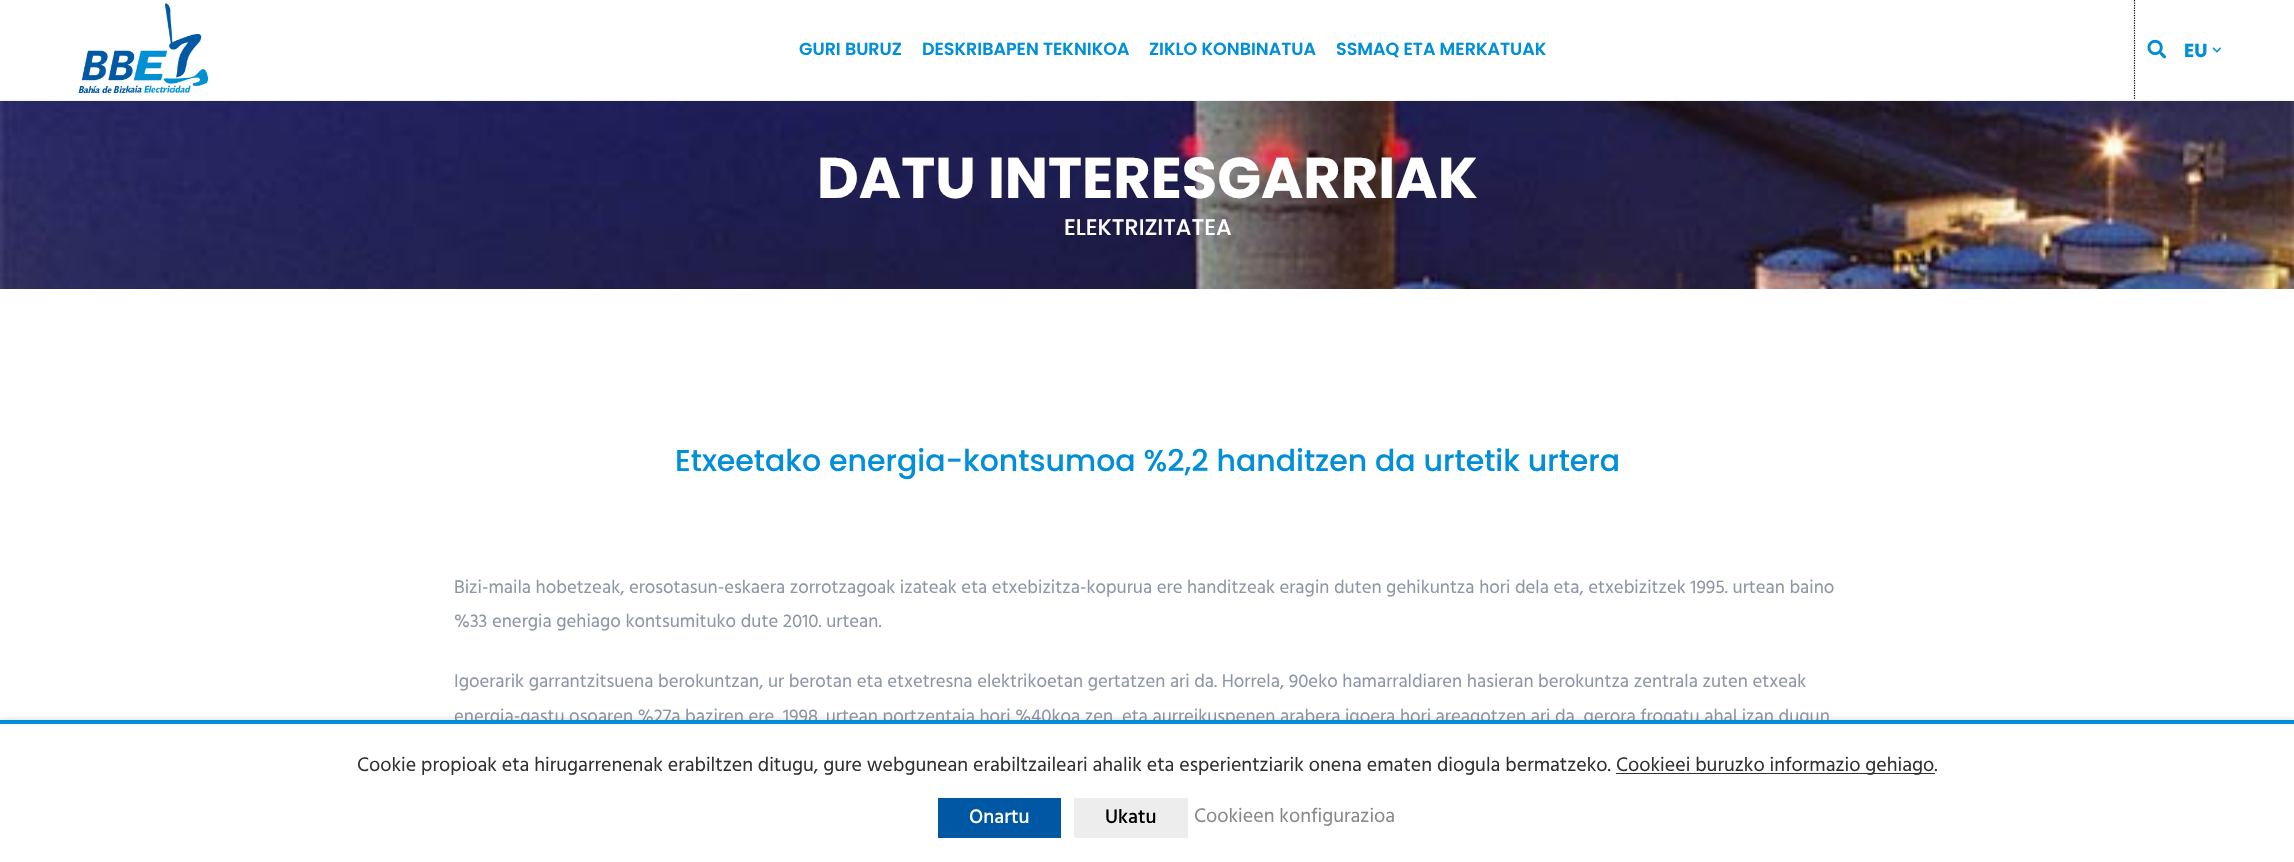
void draw(SkCanvas* canvas) {
    SkPaint paint;
    paint.setAntiAlias(true);
    canvas->clear(0xFFFFFFFF);
    paint.setColor(0xFFF2F2F2);
    canvas->drawRect(SkRect::MakeXYWH(0, 100, 2294, 1), paint);
    canvas->drawImageRect(SkImages::DeferredFromEncodedData(SkData::MakeFromFileName("img1.png")), SkRect::MakeXYWH(78, 3, 131, 91), SkSamplingOptions());
    SkFont font1(fontMgr->matchFamilyStyle("Poppins", SkFontStyle(600, SkFontStyle::kNormal_Width, SkFontStyle::kUpright_Slant)), 17.5f);
    font1.setSubpixel(true);
    paint.setColor(0xFF008FD8);
    canvas->drawString("GURI BURUZ", 799, 55, font1, paint);
    canvas->drawString("DESKRIBAPEN TEKNIKOA", 922, 55, font1, paint);
    canvas->drawString("ZIKLO KONBINATUA", 1149, 55, font1, paint);
    canvas->drawString("SSMAQ ETA MERKATUAK", 1336, 55, font1, paint);
    paint.setStyle(SkPaint::kStroke_Style);
    paint.setStrokeWidth(1.2f);
    paint.setColor(0xFF000000);
    paint.setPathEffect(SkDashPathEffect::Make({{1.25f, 1.25f}}, 0));
    canvas->drawPath(SkPathBuilder().moveTo(2134.5f, 0).lineTo(2134.5f, 100).detach(), paint);
    paint.setPathEffect(nullptr);
    canvas->drawImageRect(SkImages::DeferredFromEncodedData(SkData::MakeFromFileName("img2.png")), SkRect::MakeXYWH(2147, 39, 20, 20), SkSamplingOptions());
    SkFont font2(fontMgr->matchFamilyStyle("Poppins", SkFontStyle::Bold()), 18.75f);
    font2.setSubpixel(true);
    paint.setStyle(SkPaint::kFill_Style);
    paint.setColor(0xFF008FD8);
    canvas->drawString("EU", 2184, 57, font2, paint);
    canvas->drawImageRect(SkImages::DeferredFromEncodedData(SkData::MakeFromFileName("img3.png")), SkRect::MakeXYWH(2212, 47, 10, 6), SkSamplingOptions());
    canvas->drawImageRect(SkImages::DeferredFromEncodedData(SkData::MakeFromFileName("img4.png")), SkRect::MakeXYWH(0, 101, 2294, 188), SkSamplingOptions());
    SkFont font3(fontMgr->matchFamilyStyle("Poppins", SkFontStyle::Bold()), 57.5f);
    font3.setSubpixel(true);
    paint.setColor(0xFFFFFFFF);
    canvas->drawString("DATU INTERESGARRIAK", 817, 198, font3, paint);
    SkFont font4(fontMgr->matchFamilyStyle("Poppins", SkFontStyle(500, SkFontStyle::kNormal_Width, SkFontStyle::kUpright_Slant)), 22.5f);
    font4.setSubpixel(true);
    canvas->drawString("ELEKTRIZITATEA", 1064, 235, font4, paint);
    SkFont font5(fontMgr->matchFamilyStyle("Poppins", SkFontStyle(500, SkFontStyle::kNormal_Width, SkFontStyle::kUpright_Slant)), 30);
    font5.setSubpixel(true);
    paint.setColor(0xFF008FD8);
    canvas->drawString("Etxeetako energia-kontsumoa %2,2 handitzen da urtetik urtera", 675, 471, font5, paint);
    SkFont font6(fontMgr->matchFamilyStyle("Hind", SkFontStyle::Normal()), 18.75f);
    font6.setSubpixel(true);
    paint.setColor(0xFF8E95A6);
    canvas->drawString("Bizi-maila hobetzeak, erosotasun-eskaera zorrotzagoak izateak eta etxebizitza-kopurua ere handitzeak eragin duten gehikuntza hori dela eta, etxebizitzek 1995. urtean baino", 454, 593, font6, paint);
    canvas->drawString("%33 energia gehiago kontsumituko dute 2010. urtean.", 454, 627, font6, paint);
    canvas->drawString("Igoerarik garrantzitsuena berokuntzan, ur berotan eta etxetresna elektrikoetan gertatzen ari da. Horrela, 90eko hamarraldiaren hasieran berokuntza zentrala zuten etxeak", 454, 687, font6, paint);
    canvas->drawString("energia-gastu osoaren %27a baziren ere, 1998. urtean portzentaia hori %40koa zen, eta aurreikuspenen arabera igoera hori areagotzen ari da, gerora frogatu ahal izan dugun", 454, 722, font6, paint);
    canvas->save();
    canvas->clipRect(SkRect::MakeXYWH(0, 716, 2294, 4));
    paint.setColor(0x80000000);
    paint.setMaskFilter(SkMaskFilter::MakeBlur(kNormal_SkBlurStyle, 6));
    canvas->drawRect(SkRect::MakeXYWH(0, 726, 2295, 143), paint);
    paint.setMaskFilter(nullptr);
    canvas->restore();
    paint.setColor(0xF7FFFFFF);
    canvas->drawRect(SkRect::MakeXYWH(491, 724, 1317, 2), paint);
    paint.setColor(0xFF008FD6);
    canvas->drawRect(SkRect::MakeXYWH(0, 720, 2294, 4), paint);
    SkFont font7(fontMgr->matchFamilyStyle("Hind", SkFontStyle::Normal()), 20);
    font7.setSubpixel(true);
    paint.setColor(0xFF313131);
    canvas->drawString("Cookie propioak eta hirugarrenenak erabiltzen ditugu, gure webgunean erabiltzaileari ahalik eta esperientziarik onena ematen diogula bermatzeko.", 357, 771, font7, paint);
    canvas->drawRect(SkRect::MakeXYWH(1616, 773, 319, 1), paint);
    canvas->drawString("Cookieei buruzko informazio gehiago.", 1616, 771, font7, paint);
    paint.setColor(0xFF0057A4);
    canvas->drawRect(SkRect::MakeXYWH(938, 798, 123, 40), paint);
    SkFont font8(fontMgr->matchFamilyStyle("Hind", SkFontStyle(500, SkFontStyle::kNormal_Width, SkFontStyle::kUpright_Slant)), 20);
    font8.setSubpixel(true);
    paint.setColor(0xFFFFFFFF);
    canvas->drawString("Onartu", 969, 823, font8, paint);
    paint.setColor(0xFFEDEDED);
    canvas->drawRect(SkRect::MakeXYWH(1074, 798, 114, 40), paint);
    paint.setColor(0xFF000000);
    canvas->drawString("Ukatu", 1105, 823, font8, paint);
    paint.setColor(0xFF898888);
    canvas->drawString("Cookieen konfigurazioa", 1194, 822, font7, paint);
}
